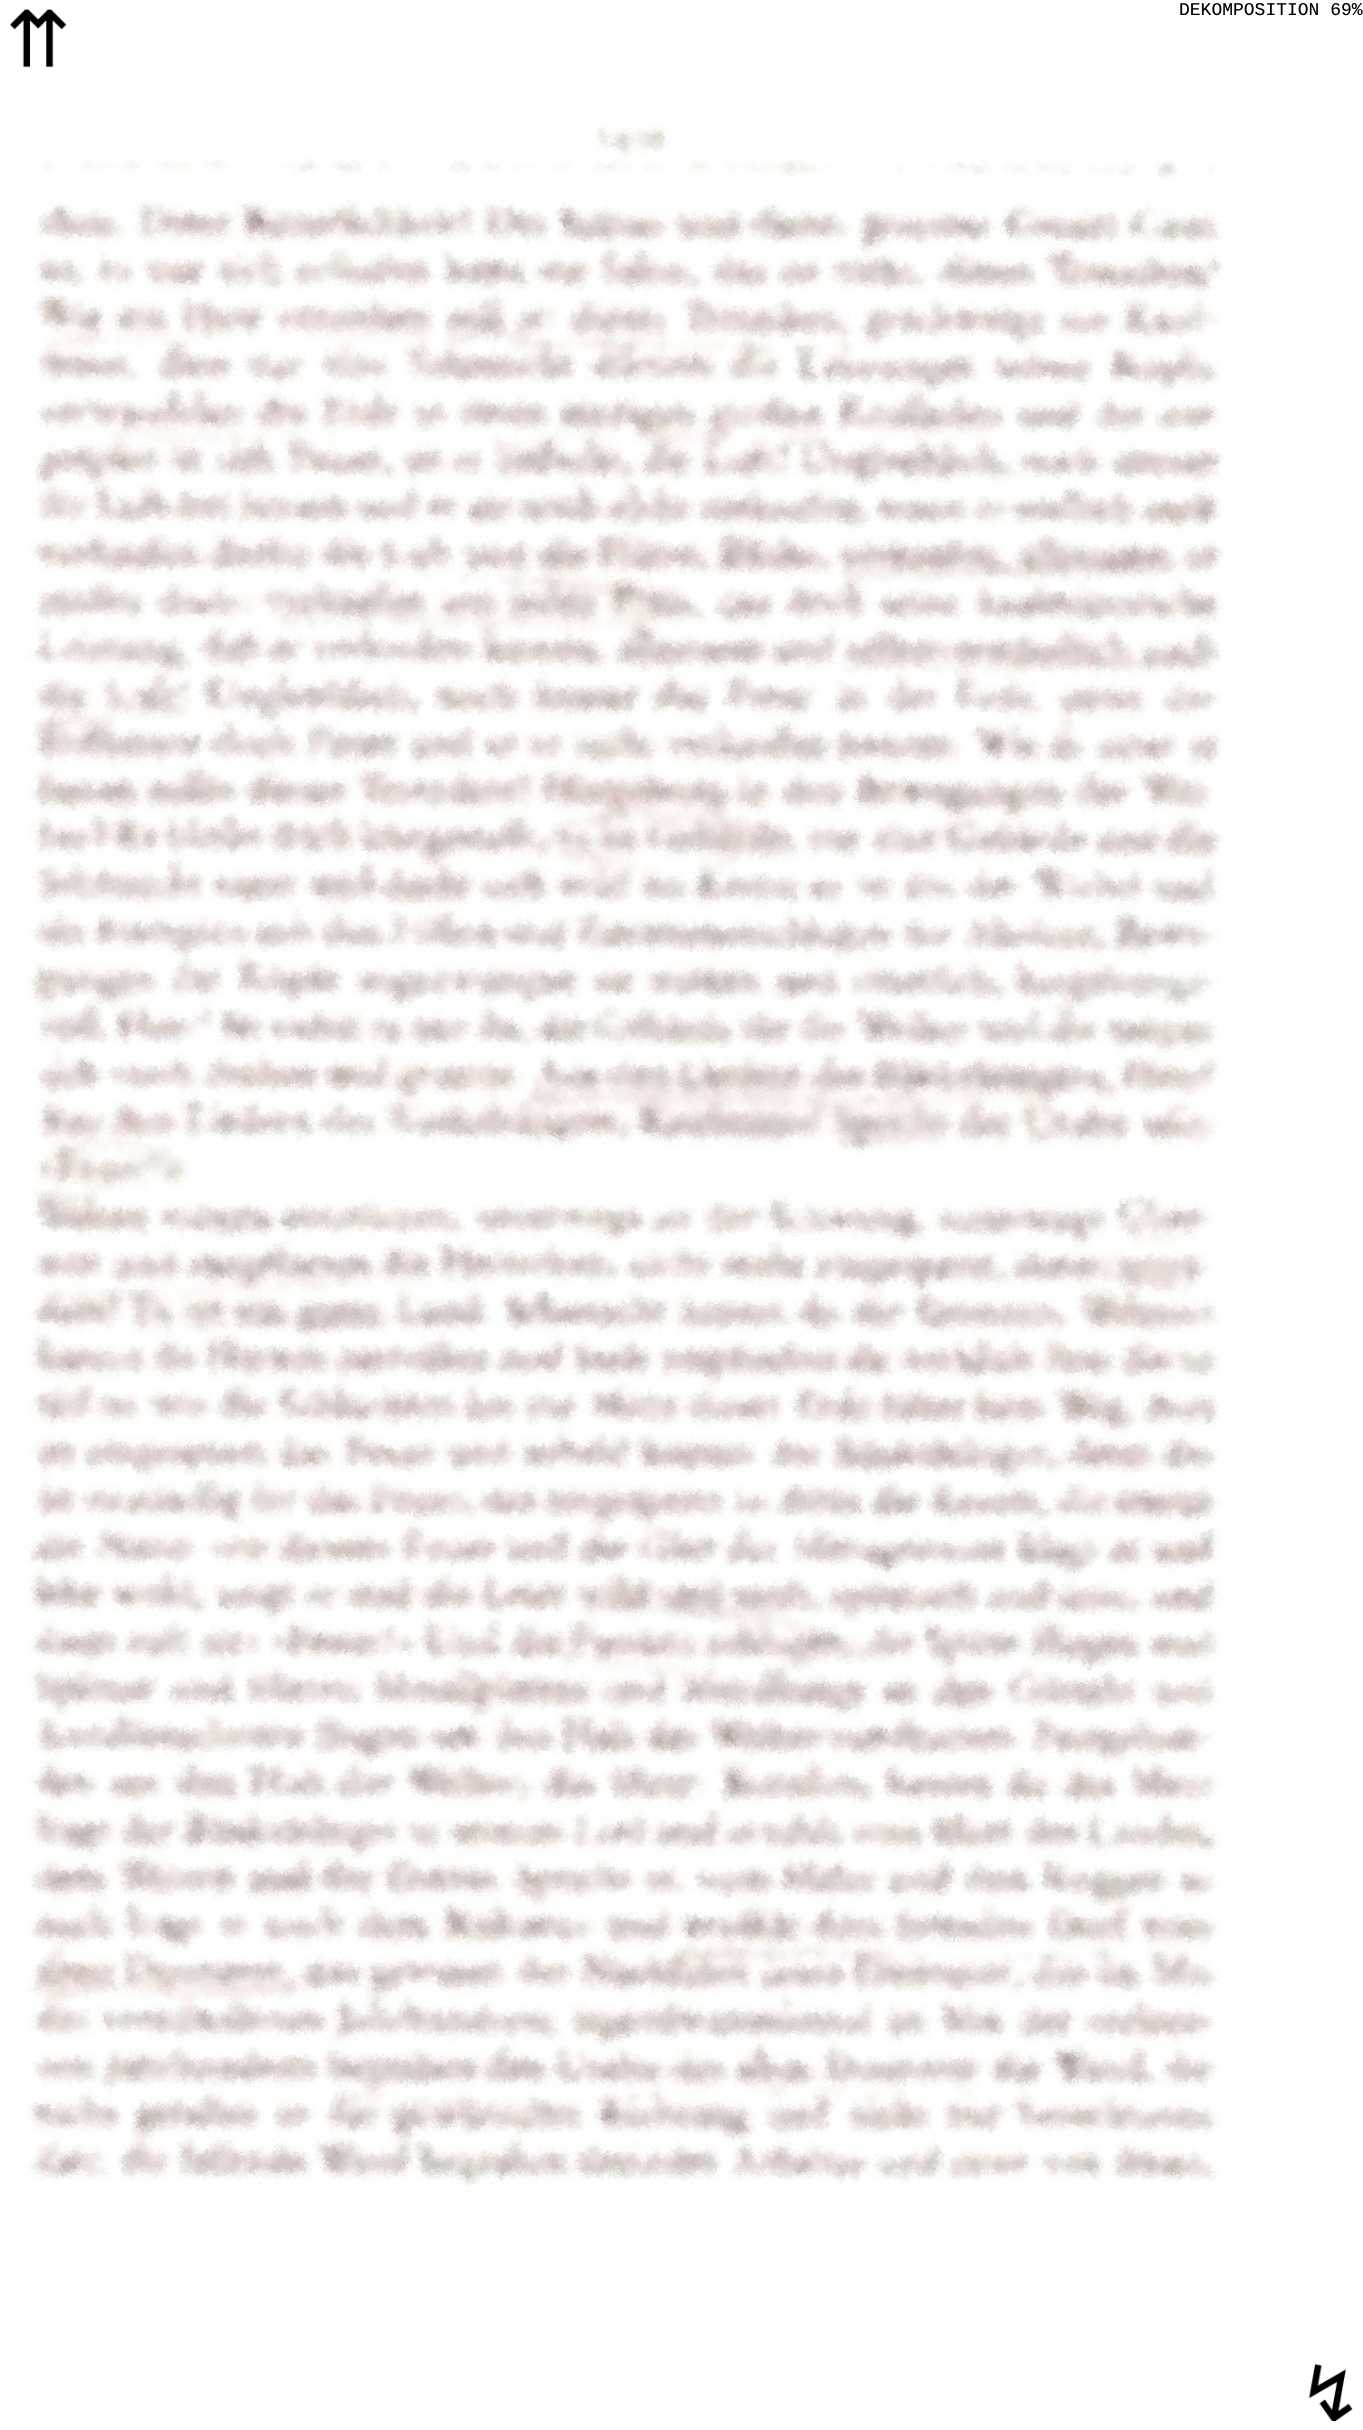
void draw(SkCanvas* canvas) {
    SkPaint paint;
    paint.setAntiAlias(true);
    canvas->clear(0xFFFFFFFF);
    SkFont font1(fontMgr->matchFamilyStyle("Liberation Mono", SkFontStyle::Normal()), 18);
    font1.setSubpixel(true);
    paint.setColor(0xFF000000);
    canvas->drawString("DEKOMPOSITION 69%", 1179, 15, font1, paint);
    canvas->drawImageRect(SkImages::DeferredFromEncodedData(SkData::MakeFromFileName("img1.png")), SkRect::MakeXYWH(10, 9, 57, 59), SkSamplingOptions());
    canvas->drawImageRect(SkImages::DeferredFromEncodedData(SkData::MakeFromFileName("img2.png")), SkRect::MakeXYWH(1308, 2363, 45, 59), SkSamplingOptions());
    canvas->drawImageRect(SkImages::DeferredFromEncodedData(SkData::MakeFromFileName("img3.png")), SkRect::MakeXYWH(26, 125, 1199, 2066), SkSamplingOptions());
}
